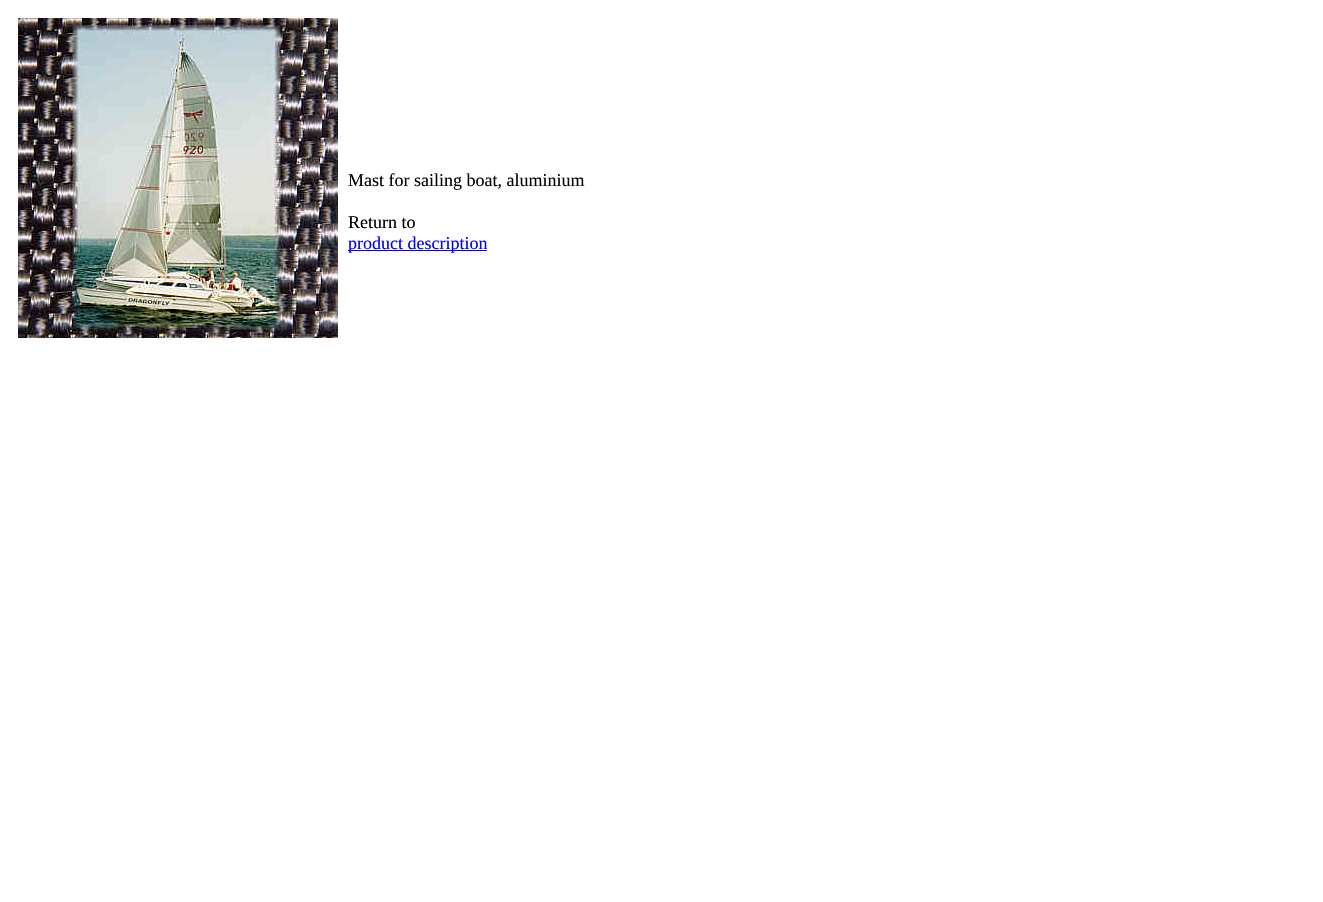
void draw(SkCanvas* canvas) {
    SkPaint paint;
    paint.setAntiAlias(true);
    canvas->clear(0xFFFFFFFF);
    canvas->drawImageRect(SkImages::DeferredFromEncodedData(SkData::MakeFromFileName("img1.png")), SkRect::MakeXYWH(18, 18, 320, 320), SkSamplingOptions());
    SkFont font1(fontMgr->matchFamilyStyle("Liberation Serif", SkFontStyle::Normal()), 18);
    font1.setSubpixel(true);
    paint.setColor(0xFF000000);
    canvas->drawString("Mast for sailing boat, aluminium", 348, 186, font1, paint);
    canvas->drawString("Return to", 348, 228, font1, paint);
    paint.setColor(0xFF0000EE);
    canvas->drawRect(SkRect::MakeXYWH(348, 250, 139, 1), paint);
    canvas->drawString("product description", 348, 249, font1, paint);
}
